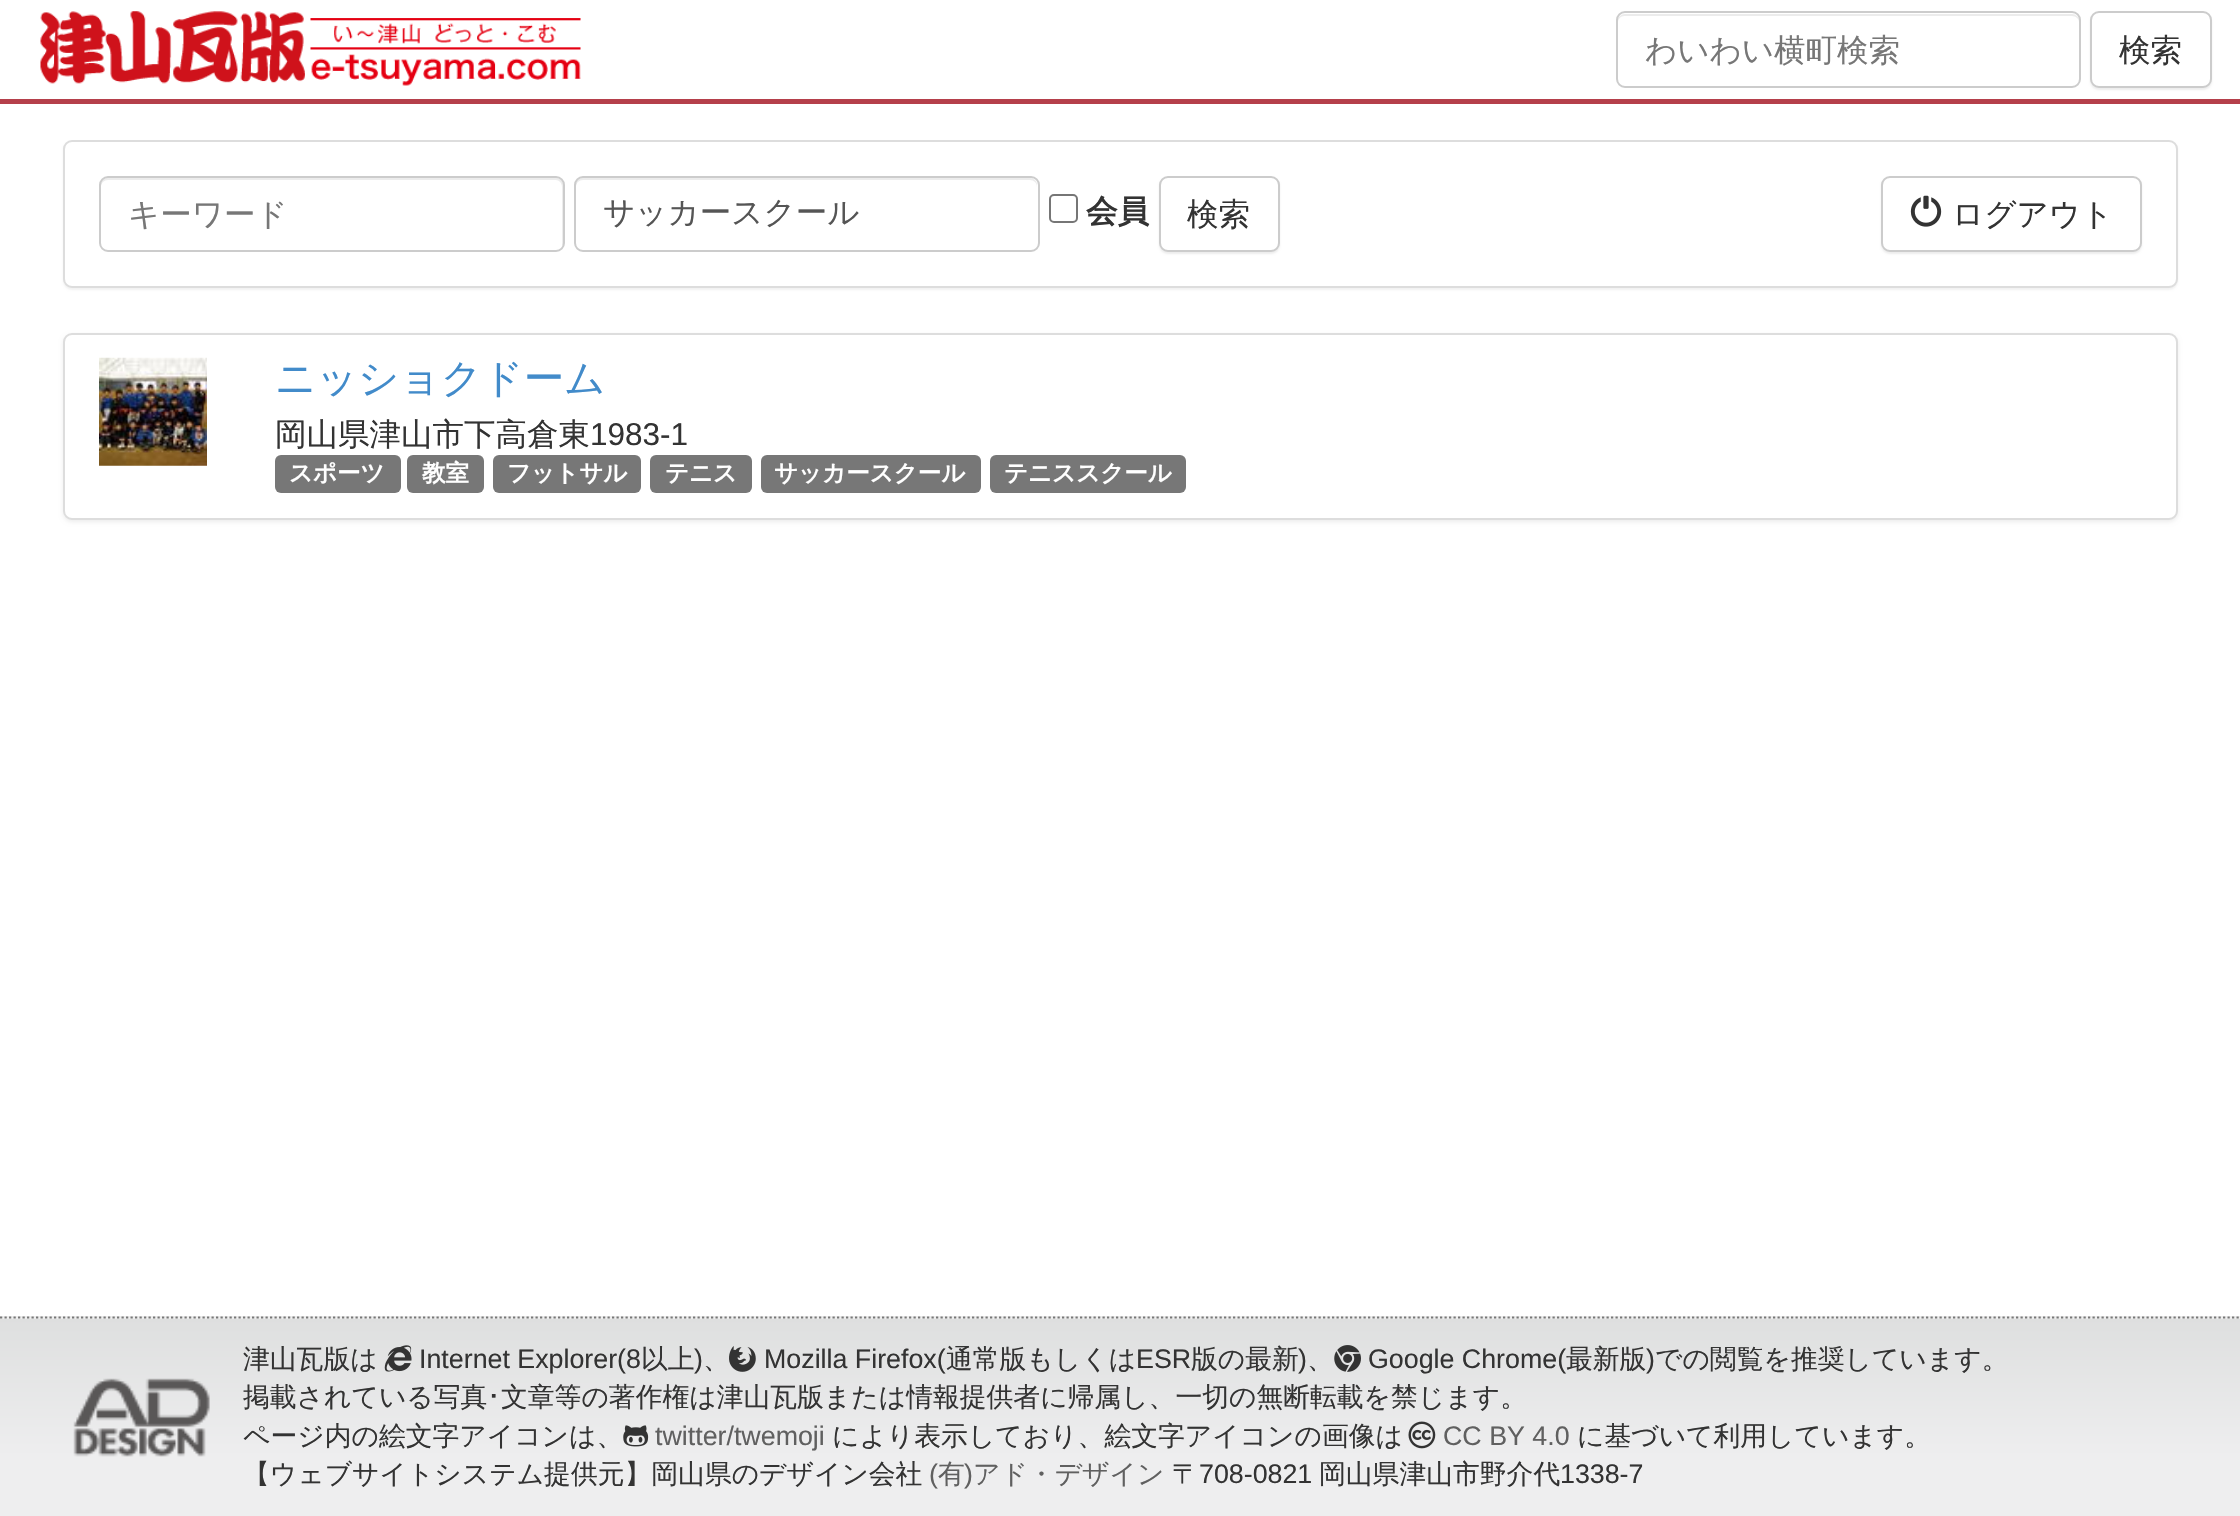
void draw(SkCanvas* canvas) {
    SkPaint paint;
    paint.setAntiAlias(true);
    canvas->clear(0xFFFFFFFF);
    paint.setColor(0xFFB5404B);
    canvas->drawRect(SkRect::MakeXYWH(0, 99, 2240, 5), paint);
    canvas->drawImageRect(SkImages::DeferredFromEncodedData(SkData::MakeFromFileName("img1.png")), SkRect::MakeXYWH(40, 11, 541, 75), SkSamplingOptions());
    paint.setColor(0xFFECECEC);
    canvas->drawPath(SkPathBuilder().moveTo(1624, 16).lineTo(2072, 16).cubicTo(2076, 16, 2079, 19, 2079, 22).lineTo(2079, 21).cubicTo(2079, 17, 2076, 14, 2072, 14).lineTo(1625, 14).cubicTo(1621, 14, 1618, 17, 1618, 21).lineTo(1618, 22).cubicTo(1618, 19, 1621, 16, 1624, 16).close().detach(), paint);
    paint.setStyle(SkPaint::kStroke_Style);
    paint.setStrokeWidth(2);
    paint.setColor(0xFFCCCCCC);
    canvas->drawRoundRect(SkRect::MakeXYWH(1617, 12, 463, 75), 8, 8, paint);
    SkFont font1(fontMgr->matchFamilyStyle("WenQuanYi Zen Hei", SkFontStyle(500, SkFontStyle::kNormal_Width, SkFontStyle::kUpright_Slant)), 31.5f);
    font1.setSubpixel(true);
    paint.setStyle(SkPaint::kFill_Style);
    paint.setColor(0xFF777777);
    canvas->drawString("わいわい横町検索", 1645, 61, font1, paint);
    paint.setColor(0x12000000);
    paint.setMaskFilter(SkMaskFilter::MakeBlur(kNormal_SkBlurStyle, 1));
    canvas->drawRoundRect(SkRect::MakeXYWH(2090, 14, 122, 76), 9, 9, paint);
    paint.setMaskFilter(nullptr);
    paint.setColor(0xFFFFFFFF);
    canvas->drawRoundRect(SkRect::MakeXYWH(2091, 12, 120, 75), 8, 8, paint);
    paint.setStyle(SkPaint::kStroke_Style);
    paint.setColor(0xFFCCCCCC);
    canvas->drawRoundRect(SkRect::MakeXYWH(2091, 12, 120, 75), 8, 8, paint);
    paint.setStyle(SkPaint::kFill_Style);
    paint.setColor(0xFF333333);
    canvas->drawString("検索", 2119, 61, font1, paint);
    paint.setColor(0x0D000000);
    paint.setMaskFilter(SkMaskFilter::MakeBlur(kNormal_SkBlurStyle, 1));
    canvas->drawRoundRect(SkRect::MakeXYWH(63, 142, 2115, 148), 9, 9, paint);
    paint.setMaskFilter(nullptr);
    paint.setColor(0xFFFFFFFF);
    canvas->drawRoundRect(SkRect::MakeXYWH(64, 141, 2113, 146), 8, 8, paint);
    paint.setStyle(SkPaint::kStroke_Style);
    paint.setColor(0xFFDDDDDD);
    canvas->drawRoundRect(SkRect::MakeXYWH(64, 141, 2113, 146), 8, 8, paint);
    paint.setStyle(SkPaint::kFill_Style);
    paint.setColor(0xFFECECEC);
    canvas->drawPath(SkPathBuilder().moveTo(108, 180).lineTo(556, 180).cubicTo(559, 180, 562, 183, 562, 187).lineTo(562, 247).cubicTo(563, 246, 563, 244, 563, 243).lineTo(563, 185).cubicTo(563, 181, 560, 178, 556, 178).lineTo(108, 178).cubicTo(104, 178, 101, 181, 101, 185).lineTo(101, 187).cubicTo(101, 183, 104, 180, 108, 180).close().detach(), paint);
    paint.setStyle(SkPaint::kStroke_Style);
    paint.setColor(0xFFCCCCCC);
    canvas->drawRoundRect(SkRect::MakeXYWH(100, 177, 464, 74), 8, 8, paint);
    paint.setStyle(SkPaint::kFill_Style);
    paint.setColor(0xFF777777);
    canvas->drawString("キーワード", 128, 225, font1, paint);
    paint.setColor(0xFFECECEC);
    canvas->drawPath(SkPathBuilder().moveTo(583, 180).lineTo(1030, 180).cubicTo(1034, 180, 1037, 183, 1037, 187).lineTo(1037, 185).cubicTo(1037, 181, 1034, 178, 1030, 178).lineTo(583, 178).cubicTo(579, 178, 576, 181, 576, 185).lineTo(576, 187).cubicTo(576, 183, 579, 180, 583, 180).close().detach(), paint);
    paint.setStyle(SkPaint::kStroke_Style);
    paint.setColor(0xFFCCCCCC);
    canvas->drawRoundRect(SkRect::MakeXYWH(575, 177, 464, 74), 8, 8, paint);
    paint.setStyle(SkPaint::kFill_Style);
    paint.setColor(0xFF555555);
    canvas->drawString("サッカースクール", 603, 223, font1, paint);
    paint.setStyle(SkPaint::kStroke_Style);
    paint.setColor(0xFF767676);
    canvas->drawRoundRect(SkRect::MakeXYWH(1050, 195, 27, 27), 4, 4, paint);
    SkFont font2(fontMgr->matchFamilyStyle("WenQuanYi Zen Hei", SkFontStyle::Bold()), 31.5f);
    font2.setSubpixel(true);
    paint.setStyle(SkPaint::kFill_Style);
    paint.setColor(0xFF333333);
    canvas->drawString("会員", 1086, 222, font2, paint);
    paint.setColor(0x12000000);
    paint.setMaskFilter(SkMaskFilter::MakeBlur(kNormal_SkBlurStyle, 1));
    canvas->drawRoundRect(SkRect::MakeXYWH(1159, 178, 121, 76), 9, 9, paint);
    paint.setMaskFilter(nullptr);
    paint.setColor(0xFFFFFFFF);
    canvas->drawRoundRect(SkRect::MakeXYWH(1160, 177, 119, 74), 8, 8, paint);
    paint.setStyle(SkPaint::kStroke_Style);
    paint.setColor(0xFFCCCCCC);
    canvas->drawRoundRect(SkRect::MakeXYWH(1160, 177, 119, 74), 8, 8, paint);
    paint.setStyle(SkPaint::kFill_Style);
    paint.setColor(0xFF333333);
    canvas->drawString("検索", 1187, 225, font1, paint);
    paint.setColor(0x12000000);
    paint.setMaskFilter(SkMaskFilter::MakeBlur(kNormal_SkBlurStyle, 1));
    canvas->drawRoundRect(SkRect::MakeXYWH(1881, 178, 261, 76), 9, 9, paint);
    paint.setMaskFilter(nullptr);
    paint.setColor(0xFFFFFFFF);
    canvas->drawRoundRect(SkRect::MakeXYWH(1882, 177, 259, 74), 8, 8, paint);
    paint.setStyle(SkPaint::kStroke_Style);
    paint.setColor(0xFFCCCCCC);
    canvas->drawRoundRect(SkRect::MakeXYWH(1882, 177, 259, 74), 8, 8, paint);
    canvas->drawImageRect(SkImages::DeferredFromEncodedData(SkData::MakeFromFileName("img2.png")), SkRect::MakeXYWH(1910, 195, 32, 32), SkSamplingOptions());
    paint.setStyle(SkPaint::kFill_Style);
    paint.setColor(0xFF333333);
    canvas->drawString("ログアウト", 1952, 225, font1, paint);
    paint.setColor(0x12000000);
    paint.setMaskFilter(SkMaskFilter::MakeBlur(kNormal_SkBlurStyle, 2));
    canvas->drawRoundRect(SkRect::MakeXYWH(63, 335, 2115, 187), 9, 9, paint);
    paint.setMaskFilter(nullptr);
    paint.setColor(0xFFFFFFFF);
    canvas->drawRoundRect(SkRect::MakeXYWH(64, 334, 2113, 185), 8, 8, paint);
    paint.setStyle(SkPaint::kStroke_Style);
    paint.setColor(0xFFDDDDDD);
    canvas->drawRoundRect(SkRect::MakeXYWH(64, 334, 2113, 185), 8, 8, paint);
    canvas->drawImageRect(SkImages::DeferredFromEncodedData(SkData::MakeFromFileName("img3.png")), SkRect::MakeXYWH(99, 357, 108, 109), SkSamplingOptions());
    SkFont font3(fontMgr->matchFamilyStyle("WenQuanYi Zen Hei", SkFontStyle(500, SkFontStyle::kNormal_Width, SkFontStyle::kUpright_Slant)), 40.5f);
    font3.setSubpixel(true);
    paint.setStyle(SkPaint::kFill_Style);
    paint.setColor(0xFF428BCA);
    canvas->drawString("ニッショクドーム", 275, 392, font3, paint);
    paint.setColor(0xFF333333);
    canvas->drawString("岡山県津山市下高倉東", 275, 445, font1, paint);
    SkFont font4(fontMgr->matchFamilyStyle("Liberation Sans", SkFontStyle::Normal()), 31.5f);
    font4.setSubpixel(true);
    canvas->drawString("1983-1", 590, 445, font4, paint);
    paint.setColor(0xFF777777);
    canvas->drawRoundRect(SkRect::MakeXYWH(275, 455, 126, 38), 6, 6, paint);
    SkFont font5(fontMgr->matchFamilyStyle("WenQuanYi Zen Hei", SkFontStyle::Bold()), 23.5f);
    font5.setSubpixel(true);
    paint.setColor(0xFFFFFFFF);
    canvas->drawString("スポーツ", 289, 481, font5, paint);
    paint.setColor(0xFF777777);
    canvas->drawRoundRect(SkRect::MakeXYWH(407, 455, 77, 38), 6, 6, paint);
    paint.setColor(0xFFFFFFFF);
    canvas->drawString("教室", 422, 481, font5, paint);
    paint.setColor(0xFF777777);
    canvas->drawRoundRect(SkRect::MakeXYWH(493, 455, 148, 38), 6, 6, paint);
    paint.setColor(0xFFFFFFFF);
    canvas->drawString("フットサル", 507, 481, font5, paint);
    paint.setColor(0xFF777777);
    canvas->drawRoundRect(SkRect::MakeXYWH(650, 455, 102, 38), 6, 6, paint);
    paint.setColor(0xFFFFFFFF);
    canvas->drawString("テニス", 665, 481, font5, paint);
    paint.setColor(0xFF777777);
    canvas->drawRoundRect(SkRect::MakeXYWH(761, 455, 220, 38), 6, 6, paint);
    paint.setColor(0xFFFFFFFF);
    canvas->drawString("サッカースクール", 774, 481, font5, paint);
    paint.setColor(0xFF777777);
    canvas->drawRoundRect(SkRect::MakeXYWH(990, 455, 196, 38), 6, 6, paint);
    paint.setColor(0xFFFFFFFF);
    canvas->drawString("テニススクール", 1004, 481, font5, paint);
    paint.setColor(0xFFEEEEEE);
    canvas->drawRect(SkRect::MakeXYWH(0, 1316, 2240, 3), paint);
    paint.setStyle(SkPaint::kStroke_Style);
    paint.setStrokeWidth(2.2f);
    paint.setColor(0xFF777777);
    paint.setPathEffect(SkDashPathEffect::Make({{2.25f, 2.25f}}, 0));
    canvas->drawPath(SkPathBuilder().moveTo(0, 1317.5f).lineTo(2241, 1317.5f).detach(), paint);
    paint.setPathEffect(nullptr);
    paint.setStyle(SkPaint::kFill_Style);
    {
        const SkColor colors[] = {0xFFDEDFDF, 0xFFEEEEEF};
        const float stops[] = {0, 0.7f};
        const SkPoint ends[] = {{1121, 1318}, {1121, 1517}};
        paint.setShader(SkGradientShader::MakeLinear(ends, colors, stops, 2, SkTileMode::kClamp));
        paint.setAlpha(255);
    }
    canvas->drawRect(SkRect::MakeXYWH(0, 1319, 2240, 197), paint);
    canvas->drawImageRect(SkImages::DeferredFromEncodedData(SkData::MakeFromFileName("img4.png")), SkRect::MakeXYWH(73, 1378, 137, 79), SkSamplingOptions());
    SkFont font6(fontMgr->matchFamilyStyle("WenQuanYi Zen Hei", SkFontStyle(500, SkFontStyle::kNormal_Width, SkFontStyle::kUpright_Slant)), 26.8f);
    font6.setSubpixel(true);
    paint.setShader(nullptr);
    paint.setColor(0xFF333333);
    canvas->drawString("津山瓦版は", 243, 1368, font6, paint);
    canvas->drawImageRect(SkImages::DeferredFromEncodedData(SkData::MakeFromFileName("img5.png")), SkRect::MakeXYWH(384, 1345, 28, 27), SkSamplingOptions());
    SkFont font7(fontMgr->matchFamilyStyle("Liberation Sans", SkFontStyle::Normal()), 26.8f);
    font7.setSubpixel(true);
    canvas->drawString("Internet Explorer(8", 419, 1368, font7, paint);
    canvas->drawString("以上", 641, 1368, font6, paint);
    canvas->drawString(")", 694, 1368, font7, paint);
    canvas->drawString("、", 703, 1368, font6, paint);
    canvas->drawImageRect(SkImages::DeferredFromEncodedData(SkData::MakeFromFileName("img6.png")), SkRect::MakeXYWH(729, 1346, 27, 26), SkSamplingOptions());
    canvas->drawString("Mozilla Firefox(", 764, 1368, font7, paint);
    canvas->drawString("通常版もしくは", 946, 1368, font6, paint);
    canvas->drawString("ESR", 1136, 1368, font7, paint);
    canvas->drawString("版の最新", 1191, 1368, font6, paint);
    canvas->drawString(")", 1298, 1368, font7, paint);
    canvas->drawString("、", 1307, 1368, font6, paint);
    canvas->drawImageRect(SkImages::DeferredFromEncodedData(SkData::MakeFromFileName("img7.png")), SkRect::MakeXYWH(1334, 1345, 27, 27), SkSamplingOptions());
    canvas->drawString("Google Chrome(", 1368, 1368, font7, paint);
    canvas->drawString("最新版", 1566, 1368, font6, paint);
    canvas->drawString(")", 1646, 1368, font7, paint);
    canvas->drawString("での閲覧を推奨しています。", 1655, 1368, font6, paint);
    canvas->drawString("掲載されている写真", 243, 1406, font6, paint);
    SkFont font8(fontMgr->matchFamilyStyle("IPAPGothic", SkFontStyle::Normal()), 26.8f);
    font8.setSubpixel(true);
    canvas->drawString("･", 487, 1406, font8, paint);
    canvas->drawString("文章等の著作権は津山瓦版または情報提供者に帰属し、一切の無断転載を禁じます。", 501, 1406, font6, paint);
    canvas->drawString("ページ内の絵文字アイコンは、", 243, 1445, font6, paint);
    canvas->drawImageRect(SkImages::DeferredFromEncodedData(SkData::MakeFromFileName("img8.png")), SkRect::MakeXYWH(623, 1425, 26, 22), SkSamplingOptions());
    paint.setColor(0xFF606060);
    canvas->drawString("twitter/twemoji", 655, 1445, font7, paint);
    paint.setColor(0xFF333333);
    canvas->drawString("により表示しており、絵文字アイコンの画像は", 832, 1445, font6, paint);
    canvas->drawImageRect(SkImages::DeferredFromEncodedData(SkData::MakeFromFileName("img9.png")), SkRect::MakeXYWH(1408, 1421, 28, 28), SkSamplingOptions());
    paint.setColor(0xFF606060);
    canvas->drawString("CC BY 4.0", 1443, 1445, font7, paint);
    paint.setColor(0xFF333333);
    canvas->drawString("に基づいて利用しています。", 1577, 1445, font6, paint);
    canvas->drawString("【ウェブサイトシステム提供元】岡山県のデザイン会社", 243, 1483, font6, paint);
    paint.setColor(0xFF606060);
    canvas->drawString("(", 929, 1483, font7, paint);
    canvas->drawString("有", 938, 1483, font6, paint);
    canvas->drawString(")", 964, 1483, font7, paint);
    canvas->drawString("アド・デザイン", 973, 1483, font6, paint);
    paint.setColor(0xFF333333);
    canvas->drawString("〒", 1172, 1483, font6, paint);
    canvas->drawString("708-0821", 1199, 1483, font7, paint);
    canvas->drawString("岡山県津山市野介代", 1319, 1483, font6, paint);
    canvas->drawString("1338-7", 1560, 1483, font7, paint);
}
